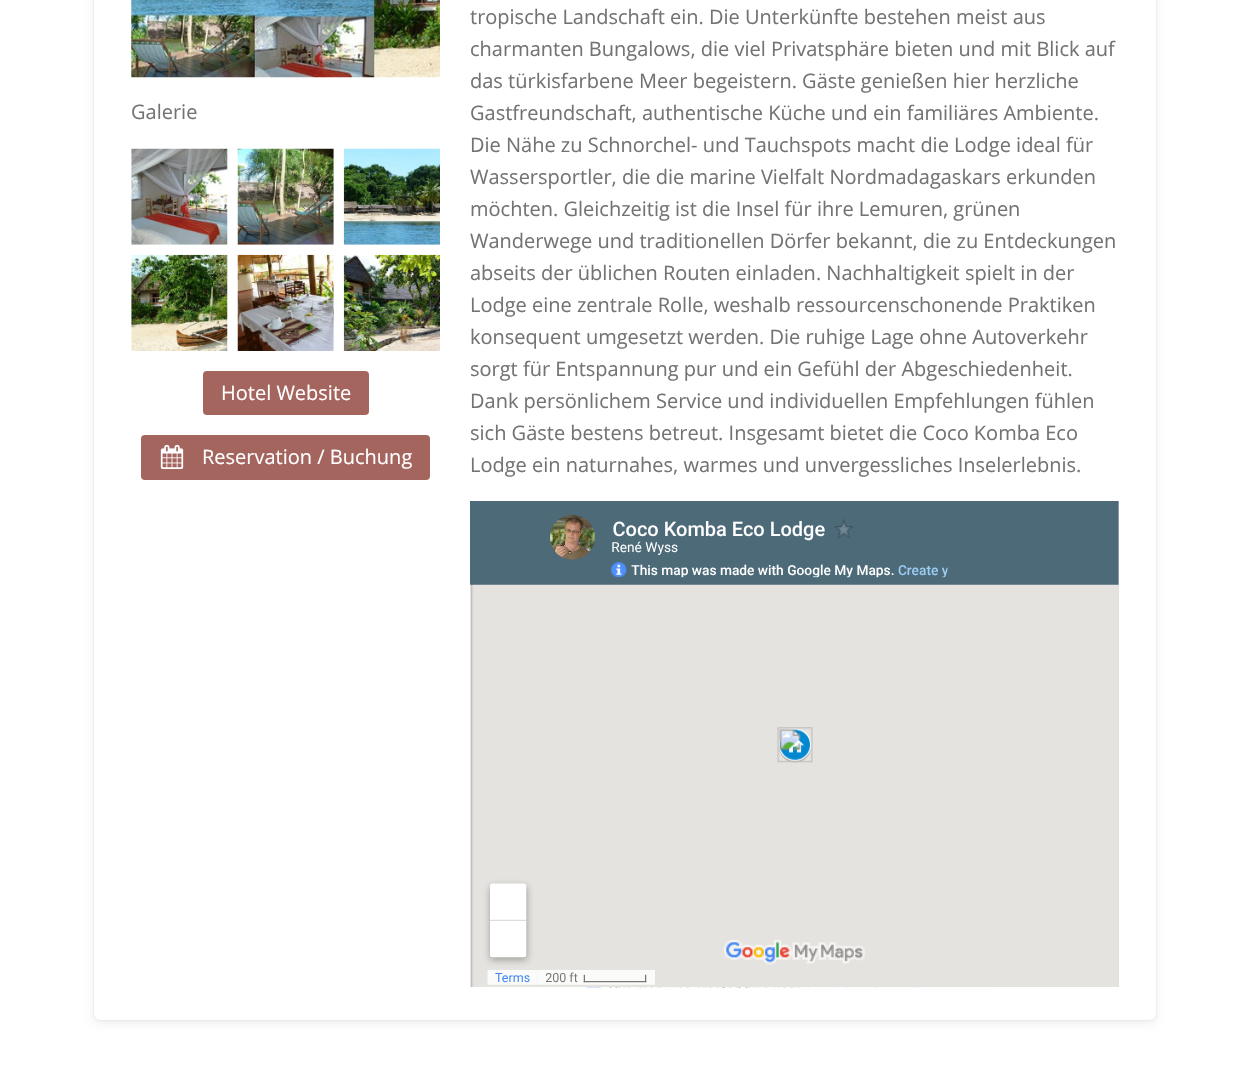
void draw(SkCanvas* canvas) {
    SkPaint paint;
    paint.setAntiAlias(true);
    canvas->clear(0xFFFFFFFF);
    paint.setColor(0x1A000000);
    paint.setMaskFilter(SkMaskFilter::MakeBlur(kNormal_SkBlurStyle, 1));
    canvas->drawRoundRect(SkRect::MakeXYWH(94, -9, 1062, 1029), 6, 6, paint);
    paint.setMaskFilter(nullptr);
    paint.setColor(0x12000000);
    paint.setMaskFilter(SkMaskFilter::MakeBlur(kNormal_SkBlurStyle, 5));
    canvas->drawRoundRect(SkRect::MakeXYWH(94, -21, 1062, 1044), 6, 6, paint);
    paint.setMaskFilter(nullptr);
    paint.setColor(0xFFFFFFFF);
    canvas->drawRoundRect(SkRect::MakeXYWH(94, -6, 1062, 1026), 6, 6, paint);
    canvas->drawImageRect(SkImages::DeferredFromEncodedData(SkData::MakeFromFileName("img1.png")), SkRect::MakeXYWH(131, 0, 309, 78), SkSamplingOptions());
    SkFont font1(fontMgr->matchFamilyStyle("Open Sans", SkFontStyle::Normal()), 20);
    font1.setSubpixel(true);
    paint.setColor(0xFF737373);
    canvas->drawString("Galerie", 131, 119, font1, paint);
    canvas->drawImageRect(SkImages::DeferredFromEncodedData(SkData::MakeFromFileName("img2.png")), SkRect::MakeXYWH(131, 148, 97, 97), SkSamplingOptions());
    canvas->drawImageRect(SkImages::DeferredFromEncodedData(SkData::MakeFromFileName("img3.png")), SkRect::MakeXYWH(237, 148, 97, 97), SkSamplingOptions());
    canvas->drawImageRect(SkImages::DeferredFromEncodedData(SkData::MakeFromFileName("img4.png")), SkRect::MakeXYWH(343, 148, 97, 97), SkSamplingOptions());
    canvas->drawImageRect(SkImages::DeferredFromEncodedData(SkData::MakeFromFileName("img5.png")), SkRect::MakeXYWH(131, 254, 97, 97), SkSamplingOptions());
    canvas->drawImageRect(SkImages::DeferredFromEncodedData(SkData::MakeFromFileName("img6.png")), SkRect::MakeXYWH(237, 254, 97, 97), SkSamplingOptions());
    canvas->drawImageRect(SkImages::DeferredFromEncodedData(SkData::MakeFromFileName("img7.png")), SkRect::MakeXYWH(343, 254, 97, 97), SkSamplingOptions());
    paint.setColor(0xFFA5655F);
    canvas->drawRoundRect(SkRect::MakeXYWH(203, 371, 166, 44), 4, 4, paint);
    paint.setColor(0xFFFFFFFF);
    canvas->drawString("Hotel Website", 221, 400, font1, paint);
    paint.setColor(0xFFA5655F);
    canvas->drawRoundRect(SkRect::MakeXYWH(141, 435, 289, 45), 4, 4, paint);
    canvas->drawImageRect(SkImages::DeferredFromEncodedData(SkData::MakeFromFileName("img8.png")), SkRect::MakeXYWH(160, 445, 24, 24), SkSamplingOptions());
    paint.setColor(0xFFFFFFFF);
    canvas->drawString("Reservation / Buchung", 202, 464, font1, paint);
    paint.setColor(0xFF737373);
    canvas->drawString("tropische Landschaft ein. Die Unterkünfte bestehen meist aus", 470, 24, font1, paint);
    canvas->drawString("charmanten Bungalows, die viel Privatsphäre bieten und mit Blick auf", 470, 56, font1, paint);
    canvas->drawString("das türkisfarbene Meer begeistern. Gäste genießen hier herzliche", 470, 88, font1, paint);
    canvas->drawString("Gastfreundschaft, authentische Küche und ein familiäres Ambiente.", 470, 120, font1, paint);
    canvas->drawString("Die Nähe zu Schnorchel- und Tauchspots macht die Lodge ideal für", 470, 152, font1, paint);
    canvas->drawString("Wassersportler, die die marine Vielfalt Nordmadagaskars erkunden", 470, 184, font1, paint);
    canvas->drawString("möchten. Gleichzeitig ist die Insel für ihre Lemuren, grünen", 470, 216, font1, paint);
    canvas->drawString("Wanderwege und traditionellen Dörfer bekannt, die zu Entdeckungen", 470, 248, font1, paint);
    canvas->drawString("abseits der üblichen Routen einladen. Nachhaltigkeit spielt in der", 470, 280, font1, paint);
    canvas->drawString("Lodge eine zentrale Rolle, weshalb ressourcenschonende Praktiken", 470, 312, font1, paint);
    canvas->drawString("konsequent umgesetzt werden. Die ruhige Lage ohne Autoverkehr", 470, 344, font1, paint);
    canvas->drawString("sorgt für Entspannung pur und ein Gefühl der Abgeschiedenheit.", 470, 376, font1, paint);
    canvas->drawString("Dank persönlichem Service und individuellen Empfehlungen fühlen", 470, 408, font1, paint);
    canvas->drawString("sich Gäste bestens betreut. Insgesamt bietet die Coco Komba Eco", 470, 440, font1, paint);
    canvas->drawString("Lodge ein naturnahes, warmes und unvergessliches Inselerlebnis.", 470, 472, font1, paint);
    canvas->drawImageRect(SkImages::DeferredFromEncodedData(SkData::MakeFromFileName("img9.png")), SkRect::MakeXYWH(470, 501, 649, 487), SkSamplingOptions());
}
